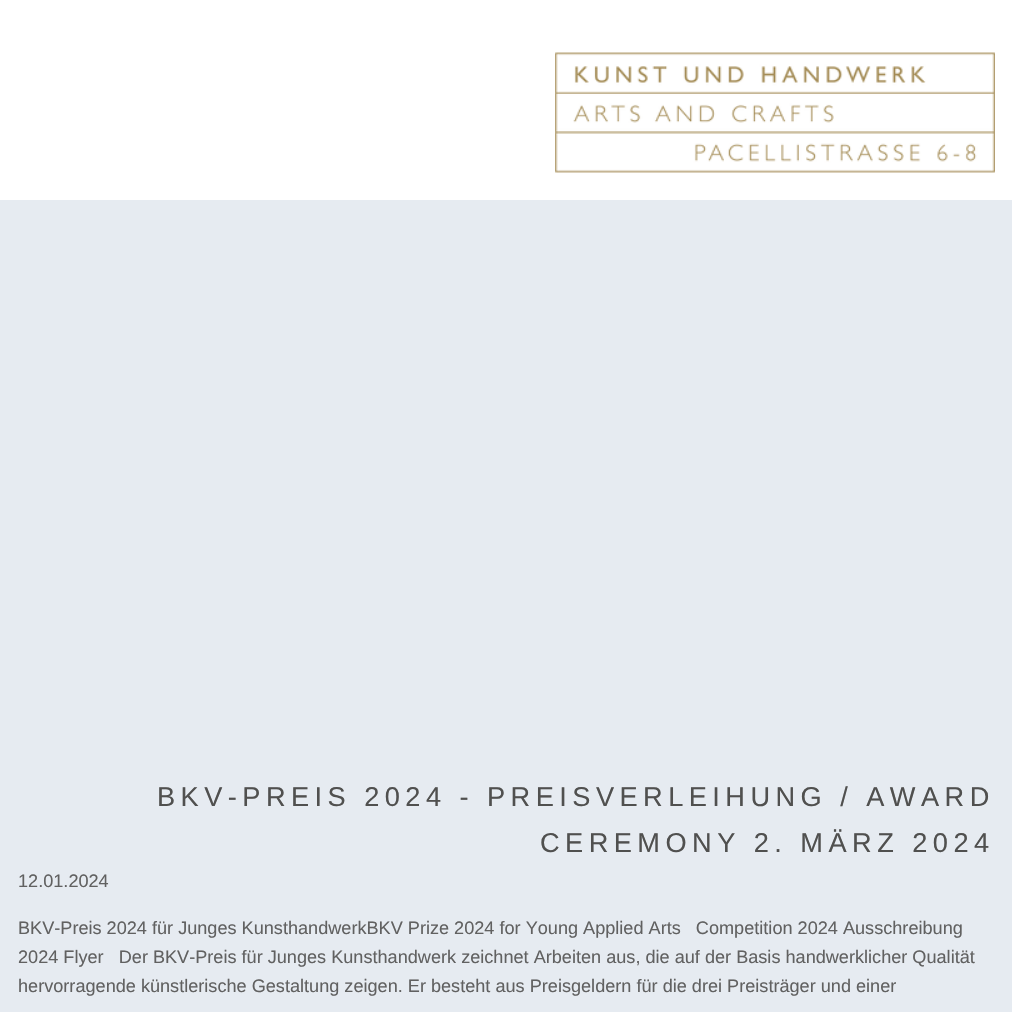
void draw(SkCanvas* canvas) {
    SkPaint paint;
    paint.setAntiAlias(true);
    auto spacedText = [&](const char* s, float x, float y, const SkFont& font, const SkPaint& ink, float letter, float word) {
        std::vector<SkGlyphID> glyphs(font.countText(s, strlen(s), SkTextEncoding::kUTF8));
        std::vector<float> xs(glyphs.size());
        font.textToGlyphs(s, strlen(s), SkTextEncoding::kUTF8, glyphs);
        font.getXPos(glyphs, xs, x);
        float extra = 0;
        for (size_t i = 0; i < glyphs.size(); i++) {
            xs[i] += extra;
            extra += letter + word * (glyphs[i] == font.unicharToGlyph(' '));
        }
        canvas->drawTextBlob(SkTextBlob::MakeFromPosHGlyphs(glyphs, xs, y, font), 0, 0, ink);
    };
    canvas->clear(0xFFFFFFFF);
    canvas->drawImageRect(SkImages::DeferredFromEncodedData(SkData::MakeFromFileName("img1.png")), SkRect::MakeXYWH(555, 52, 440, 121), SkSamplingOptions());
    paint.setColor(0xFFE6EBF1);
    canvas->drawRect(SkRect::MakeXYWH(0, 200, 1012, 812), paint);
    SkFont font1(fontMgr->matchFamilyStyle("Liberation Sans", SkFontStyle::Normal()), 27.2f);
    font1.setSubpixel(true);
    paint.setColor(0xFF50504F);
    spacedText("BKV-PREIS 2024 - PREISVERLEIHUNG / AWARD", 157, 806, font1, paint, 5.45f, 0);
    spacedText("CEREMONY 2. MÄRZ 2024", 540, 852, font1, paint, 5.45f, 0);
    SkFont font2(fontMgr->matchFamilyStyle("Liberation Sans", SkFontStyle::Normal()), 18.12f);
    font2.setSubpixel(true);
    paint.setColor(0xFF616161);
    canvas->drawString("12.01.2024", 18, 887, font2, paint);
    canvas->drawString("BKV-Preis 2024 für Junges KunsthandwerkBKV Prize 2024 for Young Applied Arts   Competition 2024 Ausschreibung", 18, 934, font2, paint);
    canvas->drawString("2024 Flyer   Der BKV-Preis für Junges Kunsthandwerk zeichnet Arbeiten aus, die auf der Basis handwerklicher Qualität", 18, 963, font2, paint);
    canvas->drawString("hervorragende künstlerische Gestaltung zeigen. Er besteht aus Preisgeldern für die drei Preisträger und einer", 18, 992, font2, paint);
}
